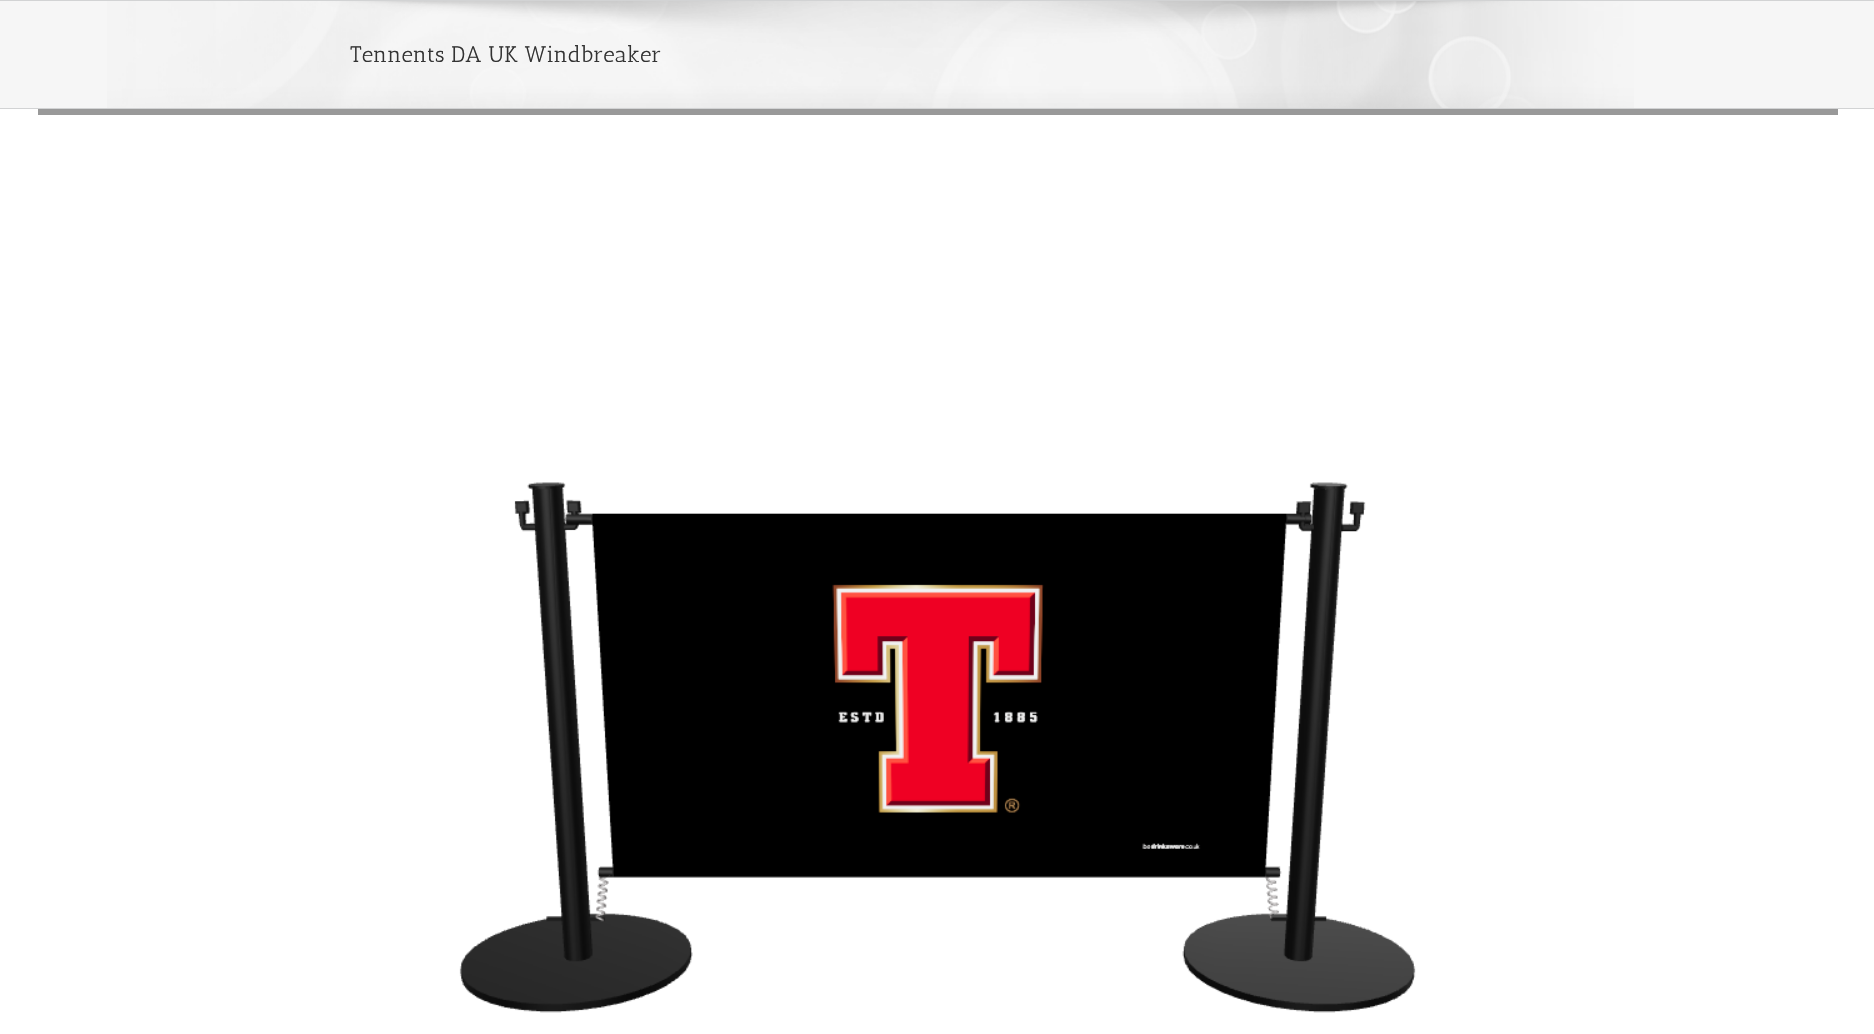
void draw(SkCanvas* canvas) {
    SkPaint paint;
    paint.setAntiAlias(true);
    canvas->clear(0xFFF6F6F6);
    canvas->drawImageRect(SkImages::DeferredFromEncodedData(SkData::MakeFromFileName("img1.png")), SkRect::MakeXYWH(107, 1, 1527, 107), SkSamplingOptions());
    paint.setColor(0xFFD2D3D4);
    canvas->drawRect(SkRect::MakeXYWH(0, 0, 1874, 1), paint);
    canvas->drawRect(SkRect::MakeXYWH(0, 108, 1874, 1), paint);
    SkFont font1(fontMgr->matchFamilyStyle("Antic Slab", SkFontStyle::Normal()), 22.5f);
    font1.setSubpixel(true);
    paint.setColor(0xFF333333);
    canvas->drawString("Tennents DA UK Windbreaker", 350, 62, font1, paint);
    paint.setColor(0xFFFFFFFF);
    canvas->drawRect(SkRect::MakeXYWH(0, 109, 1874, 925), paint);
    paint.setColor(0xFF999999);
    canvas->drawRect(SkRect::MakeXYWH(38, 109, 1800, 6), paint);
    canvas->drawImageRect(SkImages::DeferredFromEncodedData(SkData::MakeFromFileName("img2.png")), SkRect::MakeXYWH(459, 482, 957, 531), SkSamplingOptions());
}
